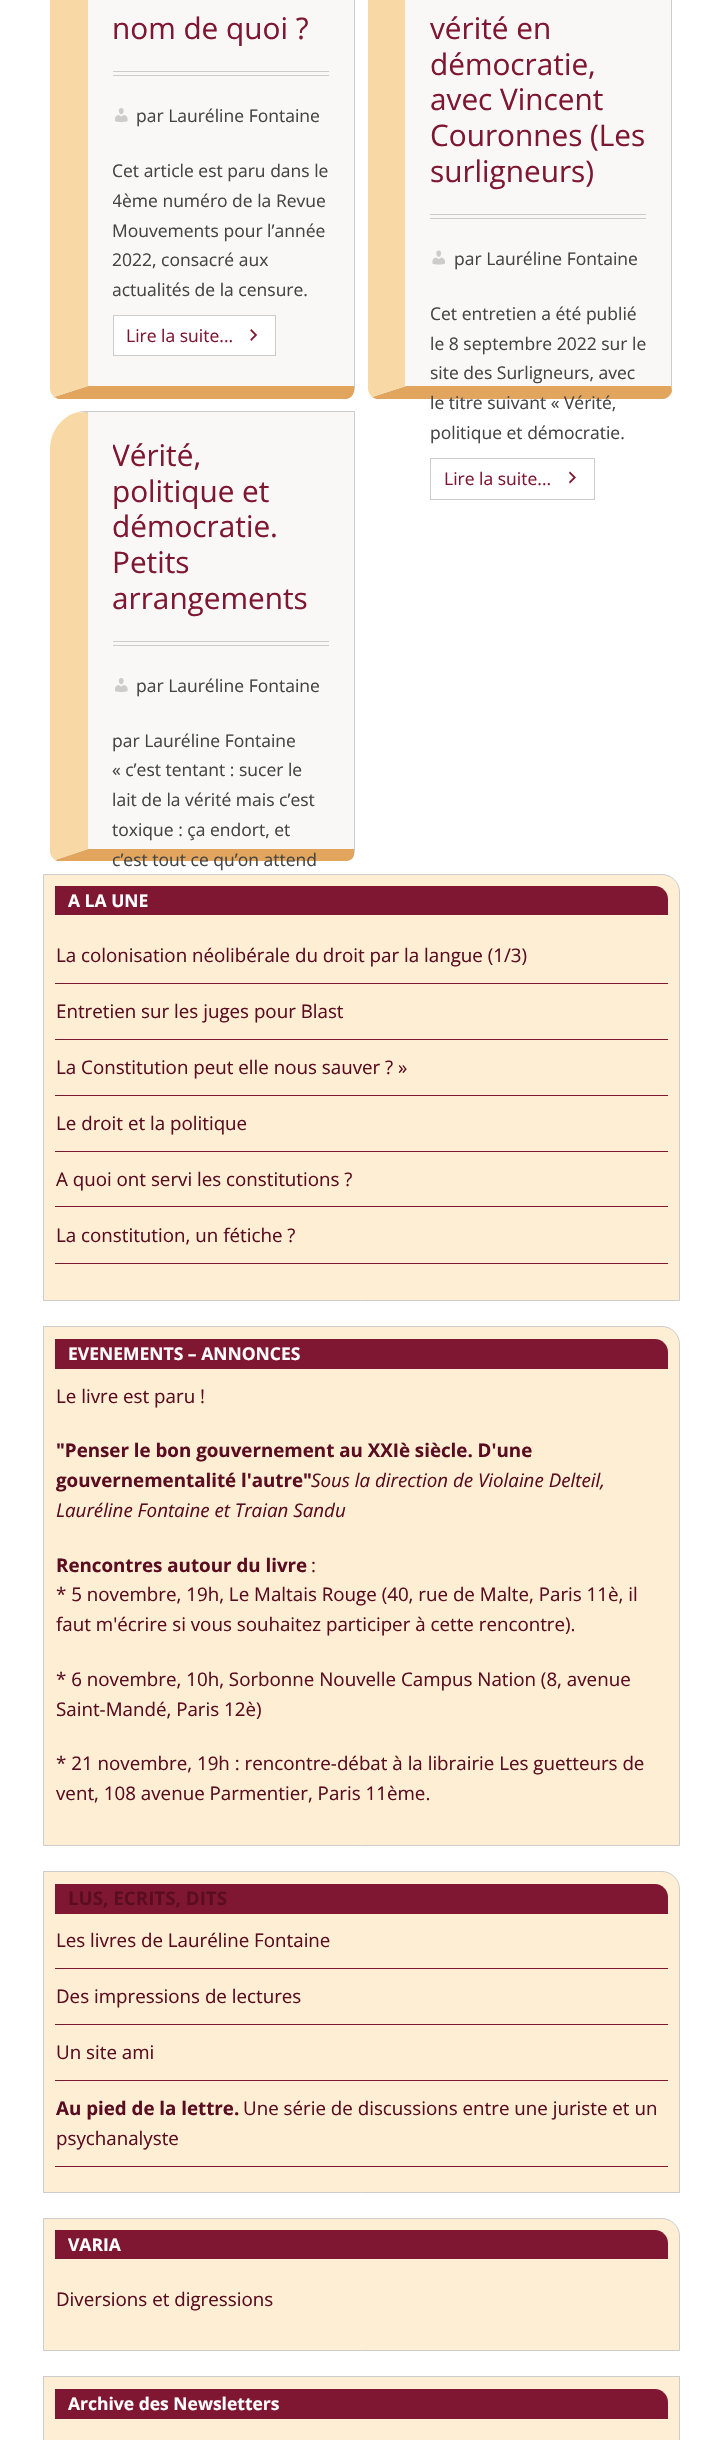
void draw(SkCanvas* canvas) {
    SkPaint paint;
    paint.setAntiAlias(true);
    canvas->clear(0xFFFFFFFF);
    paint.setColor(0xFFFAF8F6);
    canvas->drawRect(SkRect::MakeXYWH(88, 0, 266, 386), paint);
    paint.setColor(0xFFCCCCCC);
    canvas->drawPath(SkPathBuilder().moveTo(355, 389).lineTo(355, -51).lineTo(354, -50).lineTo(354, 386).lineTo(354, 392).close().detach(), paint);
    paint.setColor(0xFFE1A55E);
    canvas->drawPath(SkPathBuilder().moveTo(58, 399).lineTo(54, 397).lineTo(88, 386).lineTo(354, 386).lineTo(354, 392).cubicTo(353, 395, 351, 398, 347, 399).close().detach(), paint);
    paint.setColor(0xFFF8D9A5);
    canvas->drawPath(SkPathBuilder().moveTo(50, -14).lineTo(50, 389).cubicTo(50, 392, 52, 395, 54, 397).lineTo(88, 386).lineTo(88, -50).lineTo(80, -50).cubicTo(63, -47, 50, -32, 50, -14).close().detach(), paint);
    paint.setColor(0xFFCCCCCC);
    canvas->drawRect(SkRect::MakeXYWH(113, 71, 216, 1), paint);
    canvas->drawRect(SkRect::MakeXYWH(113, 75, 216, 1), paint);
    SkFont font1(fontMgr->matchFamilyStyle("Open Sans", SkFontStyle::Normal()), 29.75f);
    font1.setSubpixel(true);
    paint.setColor(0xFF801732);
    canvas->drawString("nom de quoi ?", 112, 39, font1, paint);
    canvas->drawImageRect(SkImages::DeferredFromEncodedData(SkData::MakeFromFileName("img1.png")), SkRect::MakeXYWH(115, 108, 13, 15), SkSamplingOptions());
    SkFont font2(fontMgr->matchFamilyStyle("Open Sans", SkFontStyle::Normal()), 17.5f);
    font2.setSubpixel(true);
    paint.setColor(0xFF444444);
    canvas->drawString("par Lauréline Fontaine", 136, 122, font2, paint);
    canvas->drawString("Cet article est paru dans le", 112, 177, font2, paint);
    canvas->save();
    canvas->clipRect(SkRect::MakeXYWH(113, 156, 216, 150));
    canvas->drawString("4ème numéro de la Revue", 112, 207, font2, paint);
    canvas->restore();
    canvas->drawString("Mouvements pour l’année", 112, 237, font2, paint);
    canvas->drawString("2022, consacré aux", 112, 266, font2, paint);
    canvas->save();
    canvas->clipRect(SkRect::MakeXYWH(113, 156, 216, 150));
    canvas->drawString("actualités de la censure.", 112, 296, font2, paint);
    canvas->restore();
    paint.setColor(0xFFFFFFFF);
    canvas->drawRect(SkRect::MakeXYWH(113.5f, 315.5f, 162, 40), paint);
    paint.setStyle(SkPaint::kStroke_Style);
    paint.setStrokeWidth(1);
    paint.setColor(0xFFCCCCCC);
    canvas->drawRect(SkRect::MakeXYWH(113.5f, 315.5f, 162, 40), paint);
    paint.setStyle(SkPaint::kFill_Style);
    paint.setColor(0xFF801732);
    canvas->drawString("Lire la suite...", 126, 342, font2, paint);
    canvas->drawImageRect(SkImages::DeferredFromEncodedData(SkData::MakeFromFileName("img2.png")), SkRect::MakeXYWH(250, 329, 8, 12), SkSamplingOptions());
    paint.setColor(0xFFFAF8F6);
    canvas->drawRect(SkRect::MakeXYWH(405, 0, 266, 386), paint);
    paint.setColor(0xFFCCCCCC);
    canvas->drawPath(SkPathBuilder().moveTo(672, 391).lineTo(672, -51).lineTo(671, -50).lineTo(671, 384).close().detach(), paint);
    paint.setColor(0xFFE1A55E);
    canvas->drawPath(SkPathBuilder().moveTo(376, 399).lineTo(372, 397).lineTo(406, 386).lineTo(671, 386).lineTo(671, 384).lineTo(672, 391).cubicTo(671, 395, 668, 398, 664, 399).close().detach(), paint);
    paint.setColor(0xFFF8D9A5);
    canvas->drawPath(SkPathBuilder().moveTo(405, -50).lineTo(397, -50).cubicTo(380, -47, 368, -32, 368, -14).lineTo(368, 389).cubicTo(368, 392, 370, 395, 372, 397).lineTo(406, 386).lineTo(405, 386).close().detach(), paint);
    paint.setColor(0xFFCCCCCC);
    canvas->drawRect(SkRect::MakeXYWH(430, 214, 216, 1), paint);
    canvas->drawRect(SkRect::MakeXYWH(430, 218, 216, 1), paint);
    paint.setColor(0xFF801732);
    canvas->drawString("vérité en", 430, 39, font1, paint);
    canvas->drawString("démocratie,", 430, 75, font1, paint);
    canvas->drawString("avec Vincent", 430, 110, font1, paint);
    canvas->drawString("Couronnes (Les", 430, 146, font1, paint);
    canvas->drawString("surligneurs)", 430, 182, font1, paint);
    canvas->drawImageRect(SkImages::DeferredFromEncodedData(SkData::MakeFromFileName("img3.png")), SkRect::MakeXYWH(432, 250, 13, 15), SkSamplingOptions());
    paint.setColor(0xFF444444);
    canvas->drawString("par Lauréline Fontaine", 454, 265, font2, paint);
    canvas->drawString("Cet entretien a été publié", 430, 320, font2, paint);
    canvas->drawString("le 8 septembre 2022 sur le", 430, 350, font2, paint);
    canvas->drawString("site des Surligneurs, avec", 430, 379, font2, paint);
    canvas->drawString("le titre suivant « Vérité,", 430, 409, font2, paint);
    canvas->drawString("politique et démocratie.", 430, 439, font2, paint);
    paint.setStyle(SkPaint::kStroke_Style);
    paint.setColor(0xFFCCCCCC);
    canvas->drawRect(SkRect::MakeXYWH(430.5f, 458.5f, 164, 41), paint);
    paint.setStyle(SkPaint::kFill_Style);
    paint.setColor(0xFF801732);
    canvas->drawString("Lire la suite...", 444, 485, font2, paint);
    canvas->drawImageRect(SkImages::DeferredFromEncodedData(SkData::MakeFromFileName("img4.png")), SkRect::MakeXYWH(569, 471, 7, 13), SkSamplingOptions());
    paint.setColor(0xFFFAF8F6);
    canvas->drawRect(SkRect::MakeXYWH(88, 412, 266, 437), paint);
    paint.setColor(0xFFCCCCCC);
    canvas->drawPath(SkPathBuilder().moveTo(88, 412).lineTo(88, 413).lineTo(78, 412).lineTo(84, 411).lineTo(355, 411).lineTo(354, 412).close().detach(), paint);
    canvas->drawPath(SkPathBuilder().moveTo(355, 411).lineTo(354, 412).lineTo(354, 849).lineTo(354, 855).lineTo(355, 851).close().detach(), paint);
    paint.setColor(0xFFE1A55E);
    canvas->drawPath(SkPathBuilder().moveTo(354, 855).cubicTo(353, 859, 350, 861, 345, 861).lineTo(60, 861).cubicTo(58, 861, 56, 861, 55, 860).lineTo(88, 849).lineTo(354, 849).close().detach(), paint);
    paint.setColor(0xFFF8D9A5);
    canvas->drawPath(SkPathBuilder().moveTo(50, 449).lineTo(50, 851).cubicTo(50, 855, 52, 858, 55, 860).lineTo(88, 849).lineTo(88, 413).lineTo(78, 412).cubicTo(62, 416, 50, 431, 50, 449).close().detach(), paint);
    paint.setColor(0xFFCCCCCC);
    canvas->drawRect(SkRect::MakeXYWH(113, 641, 216, 1), paint);
    canvas->drawRect(SkRect::MakeXYWH(113, 645, 216, 1), paint);
    canvas->save();
    canvas->clipRect(SkRect::MakeXYWH(113, 438, 216, 203));
    paint.setColor(0xFF801732);
    canvas->drawString("Vérité,", 112, 466, font1, paint);
    canvas->restore();
    canvas->drawString("politique et", 112, 502, font1, paint);
    canvas->drawString("démocratie.", 112, 537, font1, paint);
    canvas->drawString("Petits", 112, 573, font1, paint);
    canvas->drawString("arrangements", 112, 609, font1, paint);
    canvas->drawImageRect(SkImages::DeferredFromEncodedData(SkData::MakeFromFileName("img1.png")), SkRect::MakeXYWH(115, 678, 13, 15), SkSamplingOptions());
    paint.setColor(0xFF444444);
    canvas->drawString("par Lauréline Fontaine", 136, 692, font2, paint);
    canvas->drawString("par Lauréline Fontaine", 112, 747, font2, paint);
    canvas->drawString("« c’est tentant : sucer le", 112, 776, font2, paint);
    canvas->drawString("lait de la vérité mais c’est", 112, 806, font2, paint);
    canvas->drawString("toxique : ça endort, et", 112, 836, font2, paint);
    canvas->drawString("c’est tout ce qu’on attend", 112, 866, font2, paint);
    paint.setColor(0xFFFDEED4);
    canvas->drawPath(SkPathBuilder().moveTo(43.5f, 874.5f).lineTo(662, 874.5f).cubicTo(671.5f, 874.5f, 679.5f, 882.5f, 679.5f, 892).lineTo(679.5f, 1300.5f).lineTo(43.5f, 1300.5f).close().detach(), paint);
    paint.setStyle(SkPaint::kStroke_Style);
    paint.setColor(0xFFCCCCCC);
    canvas->drawPath(SkPathBuilder().moveTo(43.5f, 874.5f).lineTo(662, 874.5f).cubicTo(671.5f, 874.5f, 679.5f, 882.5f, 679.5f, 892).lineTo(679.5f, 1300.5f).lineTo(43.5f, 1300.5f).close().detach(), paint);
    paint.setStyle(SkPaint::kFill_Style);
    paint.setColor(0xFF801732);
    canvas->drawPath(SkPathBuilder().moveTo(55, 886).lineTo(655, 886).cubicTo(662, 886, 668, 892, 668, 899).lineTo(668, 915).lineTo(55, 915).close().detach(), paint);
    SkFont font3(fontMgr->matchFamilyStyle("Open Sans", SkFontStyle::Bold()), 17.5f);
    font3.setSubpixel(true);
    paint.setColor(0xFFFFFFFF);
    canvas->drawString("A LA UNE", 68, 907, font3, paint);
    paint.setColor(0xFF801732);
    canvas->drawRect(SkRect::MakeXYWH(55, 983, 613, 1), paint);
    SkFont font4(fontMgr->matchFamilyStyle("Open Sans", SkFontStyle::Normal()), 18.75f);
    font4.setSubpixel(true);
    paint.setColor(0xFF5A0C20);
    canvas->drawString("La colonisation néolibérale du droit par la langue (1/3)", 56, 962, font4, paint);
    paint.setColor(0xFF801732);
    canvas->drawRect(SkRect::MakeXYWH(55, 1039, 613, 1), paint);
    paint.setColor(0xFF5A0C20);
    canvas->drawString("Entretien sur les juges pour Blast", 56, 1018, font4, paint);
    paint.setColor(0xFF801732);
    canvas->drawRect(SkRect::MakeXYWH(55, 1095, 613, 1), paint);
    paint.setColor(0xFF5A0C20);
    canvas->drawString("La Constitution peut elle nous sauver ? »", 56, 1074, font4, paint);
    paint.setColor(0xFF801732);
    canvas->drawRect(SkRect::MakeXYWH(55, 1151, 613, 1), paint);
    paint.setColor(0xFF5A0C20);
    canvas->drawString("Le droit et la politique", 56, 1130, font4, paint);
    paint.setColor(0xFF801732);
    canvas->drawRect(SkRect::MakeXYWH(55, 1206, 613, 1), paint);
    paint.setColor(0xFF5A0C20);
    canvas->drawString("A quoi ont servi les constitutions ?", 56, 1186, font4, paint);
    paint.setColor(0xFF801732);
    canvas->drawRect(SkRect::MakeXYWH(55, 1263, 613, 1), paint);
    paint.setColor(0xFF5A0C20);
    canvas->drawString("La constitution, un fétiche ?", 56, 1242, font4, paint);
    paint.setColor(0xFFFDEED4);
    canvas->drawPath(SkPathBuilder().moveTo(43.5f, 1326.5f).lineTo(662, 1326.5f).cubicTo(671.5f, 1326.5f, 679.5f, 1334.5f, 679.5f, 1344).lineTo(679.5f, 1845.5f).lineTo(43.5f, 1845.5f).close().detach(), paint);
    paint.setStyle(SkPaint::kStroke_Style);
    paint.setColor(0xFFCCCCCC);
    canvas->drawPath(SkPathBuilder().moveTo(43.5f, 1326.5f).lineTo(662, 1326.5f).cubicTo(671.5f, 1326.5f, 679.5f, 1334.5f, 679.5f, 1344).lineTo(679.5f, 1845.5f).lineTo(43.5f, 1845.5f).close().detach(), paint);
    paint.setStyle(SkPaint::kFill_Style);
    paint.setColor(0xFF801732);
    canvas->drawPath(SkPathBuilder().moveTo(55, 1339).lineTo(655, 1339).cubicTo(662, 1339, 668, 1345, 668, 1352).lineTo(668, 1369).lineTo(55, 1369).close().detach(), paint);
    paint.setColor(0xFFFFFFFF);
    canvas->drawString("EVENEMENTS – ANNONCES", 68, 1360, font3, paint);
    paint.setColor(0xFF5A0C20);
    canvas->drawString("Le livre est paru !", 56, 1403, font4, paint);
    SkFont font5(fontMgr->matchFamilyStyle("Open Sans", SkFontStyle::Bold()), 18.75f);
    font5.setSubpixel(true);
    canvas->drawString("\"Penser le bon gouvernement au XXIè siècle. D'une", 56, 1457, font5, paint);
    canvas->drawString("gouvernementalité l'autre\"", 56, 1487, font5, paint);
    SkFont font6(fontMgr->matchFamilyStyle("Open Sans", SkFontStyle::Italic()), 18.75f);
    font6.setSubpixel(true);
    canvas->drawString("Sous la direction de Violaine Delteil,", 311, 1487, font6, paint);
    canvas->drawString("Lauréline Fontaine et Traian Sandu", 56, 1517, font6, paint);
    canvas->drawString("Rencontres autour du livre", 56, 1572, font5, paint);
    canvas->drawString(":", 311, 1572, font4, paint);
    canvas->drawString("* 5 novembre, 19h, Le Maltais Rouge (40, rue de Malte, Paris 11è, il", 56, 1601, font4, paint);
    canvas->drawString("faut m'écrire si vous souhaitez participer à cette rencontre).", 56, 1631, font4, paint);
    canvas->drawString("* 6 novembre, 10h, Sorbonne Nouvelle Campus Nation (8, avenue", 56, 1686, font4, paint);
    canvas->drawString("Saint-Mandé, Paris 12è)", 56, 1716, font4, paint);
    canvas->drawString("* 21 novembre, 19h : rencontre-débat à la librairie Les guetteurs de", 56, 1770, font4, paint);
    canvas->drawString("vent, 108 avenue Parmentier, Paris 11ème.", 56, 1800, font4, paint);
    paint.setColor(0xFFFDEED4);
    canvas->drawPath(SkPathBuilder().moveTo(43.5f, 1871.5f).lineTo(662, 1871.5f).cubicTo(671.5f, 1871.5f, 679.5f, 1879.5f, 679.5f, 1889).lineTo(679.5f, 2192.5f).lineTo(43.5f, 2192.5f).close().detach(), paint);
    paint.setStyle(SkPaint::kStroke_Style);
    paint.setColor(0xFFCCCCCC);
    canvas->drawPath(SkPathBuilder().moveTo(43.5f, 1871.5f).lineTo(662, 1871.5f).cubicTo(671.5f, 1871.5f, 679.5f, 1879.5f, 679.5f, 1889).lineTo(679.5f, 2192.5f).lineTo(43.5f, 2192.5f).close().detach(), paint);
    paint.setStyle(SkPaint::kFill_Style);
    paint.setColor(0xFF801732);
    canvas->drawPath(SkPathBuilder().moveTo(55, 1884).lineTo(655, 1884).cubicTo(662, 1884, 668, 1890, 668, 1897).lineTo(668, 1914).lineTo(55, 1914).close().detach(), paint);
    paint.setColor(0xFF5A0C20);
    canvas->drawString("LUS, ECRITS, DITS", 68, 1905, font5, paint);
    canvas->drawString("Les livres de Lauréline Fontaine", 56, 1947, font4, paint);
    paint.setColor(0xFF801732);
    canvas->drawRect(SkRect::MakeXYWH(55, 1968, 613, 1), paint);
    paint.setColor(0xFF5A0C20);
    canvas->drawString("Des impressions de lectures", 56, 2003, font4, paint);
    paint.setColor(0xFF801732);
    canvas->drawRect(SkRect::MakeXYWH(55, 2024, 613, 1), paint);
    paint.setColor(0xFF5A0C20);
    canvas->drawString("Un site ami", 56, 2059, font4, paint);
    paint.setColor(0xFF801732);
    canvas->drawRect(SkRect::MakeXYWH(55, 2080, 613, 1), paint);
    paint.setColor(0xFF5A0C20);
    canvas->drawString("Au pied de la lettre.", 56, 2115, font5, paint);
    canvas->drawString("Une série de discussions entre une juriste et un", 243, 2115, font4, paint);
    canvas->drawString("psychanalyste", 56, 2145, font4, paint);
    paint.setColor(0xFF801732);
    canvas->drawRect(SkRect::MakeXYWH(55, 2166, 613, 1), paint);
    paint.setColor(0xFFFDEED4);
    canvas->drawPath(SkPathBuilder().moveTo(43.5f, 2218.5f).lineTo(662, 2218.5f).cubicTo(671.5f, 2218.5f, 679.5f, 2226.5f, 679.5f, 2236).lineTo(679.5f, 2350.5f).lineTo(43.5f, 2350.5f).close().detach(), paint);
    paint.setStyle(SkPaint::kStroke_Style);
    paint.setColor(0xFFCCCCCC);
    canvas->drawPath(SkPathBuilder().moveTo(43.5f, 2218.5f).lineTo(662, 2218.5f).cubicTo(671.5f, 2218.5f, 679.5f, 2226.5f, 679.5f, 2236).lineTo(679.5f, 2350.5f).lineTo(43.5f, 2350.5f).close().detach(), paint);
    paint.setStyle(SkPaint::kFill_Style);
    paint.setColor(0xFF801732);
    canvas->drawPath(SkPathBuilder().moveTo(55, 2230).lineTo(655, 2230).cubicTo(662, 2230, 668, 2236, 668, 2243).lineTo(668, 2259).lineTo(55, 2259).close().detach(), paint);
    paint.setColor(0xFFFFFFFF);
    canvas->drawString("VARIA", 68, 2251, font3, paint);
    paint.setColor(0xFF5A0C20);
    canvas->drawString("Diversions et digressions", 56, 2306, font4, paint);
    paint.setColor(0xFFFDEED4);
    canvas->drawRect(SkRect::MakeXYWH(43.5f, 2376.5f, 636, 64), paint);
    paint.setStyle(SkPaint::kStroke_Style);
    paint.setColor(0xFFCCCCCC);
    canvas->drawRect(SkRect::MakeXYWH(43.5f, 2376.5f, 636, 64), paint);
    paint.setStyle(SkPaint::kFill_Style);
    paint.setColor(0xFF801732);
    canvas->drawPath(SkPathBuilder().moveTo(55, 2389).lineTo(655, 2389).cubicTo(662, 2389, 668, 2395, 668, 2402).lineTo(668, 2419).lineTo(55, 2419).close().detach(), paint);
    paint.setColor(0xFFFFFFFF);
    canvas->drawString("Archive des Newsletters", 68, 2410, font3, paint);
}
